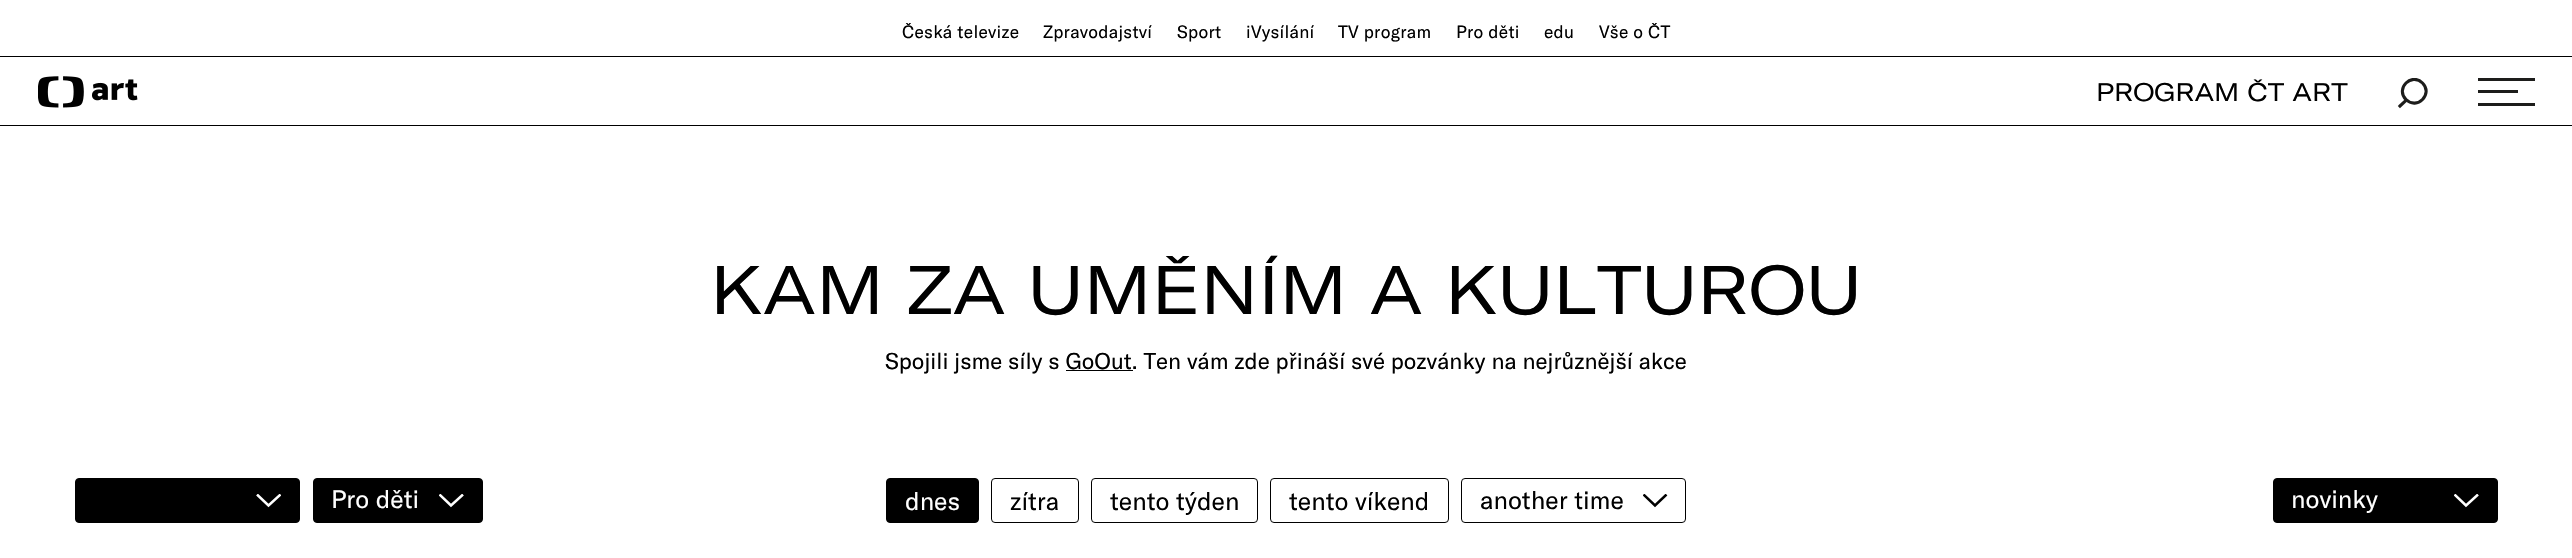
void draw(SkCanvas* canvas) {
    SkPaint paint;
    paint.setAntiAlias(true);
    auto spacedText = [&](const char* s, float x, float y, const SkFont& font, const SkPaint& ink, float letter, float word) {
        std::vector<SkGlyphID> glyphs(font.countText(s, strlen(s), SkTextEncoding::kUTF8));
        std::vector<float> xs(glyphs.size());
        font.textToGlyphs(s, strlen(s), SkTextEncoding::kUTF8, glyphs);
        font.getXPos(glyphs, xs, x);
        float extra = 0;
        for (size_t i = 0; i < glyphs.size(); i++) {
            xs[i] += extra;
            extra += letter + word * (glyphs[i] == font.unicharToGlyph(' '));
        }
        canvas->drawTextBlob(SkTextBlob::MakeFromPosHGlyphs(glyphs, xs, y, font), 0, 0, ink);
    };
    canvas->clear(0xFFFFFFFF);
    paint.setColor(0xFF000000);
    canvas->drawRect(SkRect::MakeXYWH(0, 56, 2572, 1), paint);
    SkFont font1(fontMgr->matchFamilyStyle("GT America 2", SkFontStyle::Normal()), 17.5f);
    font1.setSubpixel(true);
    spacedText("Česká televize", 902, 38, font1, paint, 0.25f, 0);
    spacedText("Zpravodajství", 1043, 38, font1, paint, 0.25f, 0);
    spacedText("Sport", 1177, 38, font1, paint, 0.25f, 0);
    spacedText("iVysílání", 1246, 38, font1, paint, 0.25f, 0);
    spacedText("TV program", 1338, 38, font1, paint, 0.25f, 0);
    spacedText("Pro děti", 1456, 38, font1, paint, 0.25f, 0);
    spacedText("edu", 1544, 38, font1, paint, 0.25f, 0);
    spacedText("Vše o ČT", 1599, 38, font1, paint, 0.25f, 0);
    canvas->drawRect(SkRect::MakeXYWH(0, 125, 2572, 1), paint);
    canvas->drawImageRect(SkImages::DeferredFromEncodedData(SkData::MakeFromFileName("img1.png")), SkRect::MakeXYWH(38, 76, 100, 32), SkSamplingOptions());
    SkFont font2(fontMgr->matchFamilyStyle("GT America", SkFontStyle::Normal()), 25);
    font2.setSubpixel(true);
    canvas->drawString("PROGRAM ČT ART", 2096, 101, font2, paint);
    canvas->save();
    canvas->clipRect(SkRect::MakeXYWH(2398, 78, 30, 31));
    paint.setStyle(SkPaint::kStroke_Style);
    paint.setStrokeWidth(3.1f);
    paint.setColor(0xFF1D1D1B);
    canvas->drawPath(SkPathBuilder().moveTo(2406, 99.5f).cubicTo(2417, 110.5f, 2433.5f, 94, 2422.5f, 83).cubicTo(2411.5f, 72, 2395, 88.5f, 2406, 99.5f).close().detach(), paint);
    canvas->restore();
    paint.setStrokeCap(SkPaint::kSquare_Cap);
    canvas->drawPath(SkPathBuilder().moveTo(2400, 106).lineTo(2406, 100.5f).detach(), paint);
    paint.setStyle(SkPaint::kFill_Style);
    canvas->drawRect(SkRect::MakeXYWH(2478, 78, 57, 3), paint);
    canvas->drawRect(SkRect::MakeXYWH(2478, 90, 40, 3), paint);
    canvas->drawRect(SkRect::MakeXYWH(2478, 103, 57, 3), paint);
    SkFont font3(fontMgr->matchFamilyStyle("GT America", SkFontStyle::Normal()), 67.5f);
    font3.setSubpixel(true);
    paint.setColor(0xFF000000);
    canvas->drawString("KAM ZA UMĚNÍM A KULTUROU", 710, 314, font3, paint);
    SkFont font4(fontMgr->matchFamilyStyle("GT America 2", SkFontStyle::Normal()), 22.5f);
    font4.setSubpixel(true);
    canvas->drawString("Spojili jsme síly s GoOut. Ten vám zde přináší své pozvánky na nejrůznější akce", 885, 369, font4, paint);
    canvas->drawRect(SkRect::MakeXYWH(1066, 370, 67, 1), paint);
    canvas->drawRoundRect(SkRect::MakeXYWH(75.5f, 478.5f, 224, 44), 3.5f, 3.5f, paint);
    paint.setStyle(SkPaint::kStroke_Style);
    paint.setStrokeWidth(1);
    paint.setStrokeCap(SkPaint::kButt_Cap);
    canvas->drawRoundRect(SkRect::MakeXYWH(75.5f, 478.5f, 224, 44), 3.5f, 3.5f, paint);
    canvas->save();
    canvas->clipRect(SkRect::MakeXYWH(256, 494, 25, 14));
    paint.setStrokeWidth(2.5f);
    paint.setColor(0xFFFFFFFF);
    canvas->drawPath(SkPathBuilder().moveTo(280.5f, 494.5f).lineTo(268.5f, 505.5f).lineTo(257, 494.5f).detach(), paint);
    canvas->restore();
    paint.setStyle(SkPaint::kFill_Style);
    paint.setColor(0xFF000000);
    canvas->drawRoundRect(SkRect::MakeXYWH(313.5f, 478.5f, 169, 44), 3.5f, 3.5f, paint);
    paint.setStyle(SkPaint::kStroke_Style);
    paint.setStrokeWidth(1);
    canvas->drawRoundRect(SkRect::MakeXYWH(313.5f, 478.5f, 169, 44), 3.5f, 3.5f, paint);
    SkFont font5(fontMgr->matchFamilyStyle("GT America 2", SkFontStyle::Normal()), 25);
    font5.setSubpixel(true);
    paint.setStyle(SkPaint::kFill_Style);
    paint.setColor(0xFFFFFFFF);
    canvas->drawString("Pro děti", 331, 508, font5, paint);
    canvas->save();
    canvas->clipRect(SkRect::MakeXYWH(439, 494, 25, 14));
    paint.setStyle(SkPaint::kStroke_Style);
    paint.setStrokeWidth(2.5f);
    canvas->drawPath(SkPathBuilder().moveTo(463, 494.5f).lineTo(451, 505.5f).lineTo(439.5f, 494.5f).detach(), paint);
    canvas->restore();
    paint.setStyle(SkPaint::kFill_Style);
    paint.setColor(0xFF000000);
    canvas->drawRoundRect(SkRect::MakeXYWH(886.5f, 478.5f, 92, 44), 3.5f, 3.5f, paint);
    paint.setStyle(SkPaint::kStroke_Style);
    paint.setStrokeWidth(1);
    canvas->drawRoundRect(SkRect::MakeXYWH(886.5f, 478.5f, 92, 44), 3.5f, 3.5f, paint);
    paint.setStyle(SkPaint::kFill_Style);
    paint.setColor(0xFFFFFFFF);
    canvas->drawString("dnes", 905, 510, font5, paint);
    paint.setStyle(SkPaint::kStroke_Style);
    paint.setColor(0xFF000000);
    canvas->drawRoundRect(SkRect::MakeXYWH(991.5f, 478.5f, 87, 44), 3.5f, 3.5f, paint);
    paint.setStyle(SkPaint::kFill_Style);
    canvas->drawString("zítra", 1010, 510, font5, paint);
    paint.setStyle(SkPaint::kStroke_Style);
    canvas->drawRoundRect(SkRect::MakeXYWH(1091.5f, 478.5f, 166, 44), 3.5f, 3.5f, paint);
    paint.setStyle(SkPaint::kFill_Style);
    canvas->drawString("tento týden", 1110, 510, font5, paint);
    paint.setStyle(SkPaint::kStroke_Style);
    canvas->drawRoundRect(SkRect::MakeXYWH(1270.5f, 478.5f, 178, 44), 3.5f, 3.5f, paint);
    paint.setStyle(SkPaint::kFill_Style);
    canvas->drawString("tento víkend", 1289, 510, font5, paint);
    paint.setStyle(SkPaint::kStroke_Style);
    canvas->drawRoundRect(SkRect::MakeXYWH(1461.5f, 478.5f, 224, 44), 3.5f, 3.5f, paint);
    paint.setStyle(SkPaint::kFill_Style);
    canvas->drawString("another time", 1480, 509, font5, paint);
    canvas->save();
    canvas->clipRect(SkRect::MakeXYWH(1643, 494, 25, 14));
    paint.setStyle(SkPaint::kStroke_Style);
    paint.setStrokeWidth(2.5f);
    canvas->drawPath(SkPathBuilder().moveTo(1666.5f, 494.5f).lineTo(1655, 505.5f).lineTo(1643.5f, 494.5f).detach(), paint);
    canvas->restore();
    paint.setStyle(SkPaint::kFill_Style);
    canvas->drawRoundRect(SkRect::MakeXYWH(2273.5f, 478.5f, 224, 44), 3.5f, 3.5f, paint);
    paint.setStyle(SkPaint::kStroke_Style);
    paint.setStrokeWidth(1);
    canvas->drawRoundRect(SkRect::MakeXYWH(2273.5f, 478.5f, 224, 44), 3.5f, 3.5f, paint);
    paint.setStyle(SkPaint::kFill_Style);
    paint.setColor(0xFFFFFFFF);
    canvas->drawString("novinky", 2291, 508, font5, paint);
    canvas->save();
    canvas->clipRect(SkRect::MakeXYWH(2454, 494, 25, 14));
    paint.setStyle(SkPaint::kStroke_Style);
    paint.setStrokeWidth(2.5f);
    canvas->drawPath(SkPathBuilder().moveTo(2478, 494.5f).lineTo(2466, 505.5f).lineTo(2454.5f, 494.5f).detach(), paint);
    canvas->restore();
}
